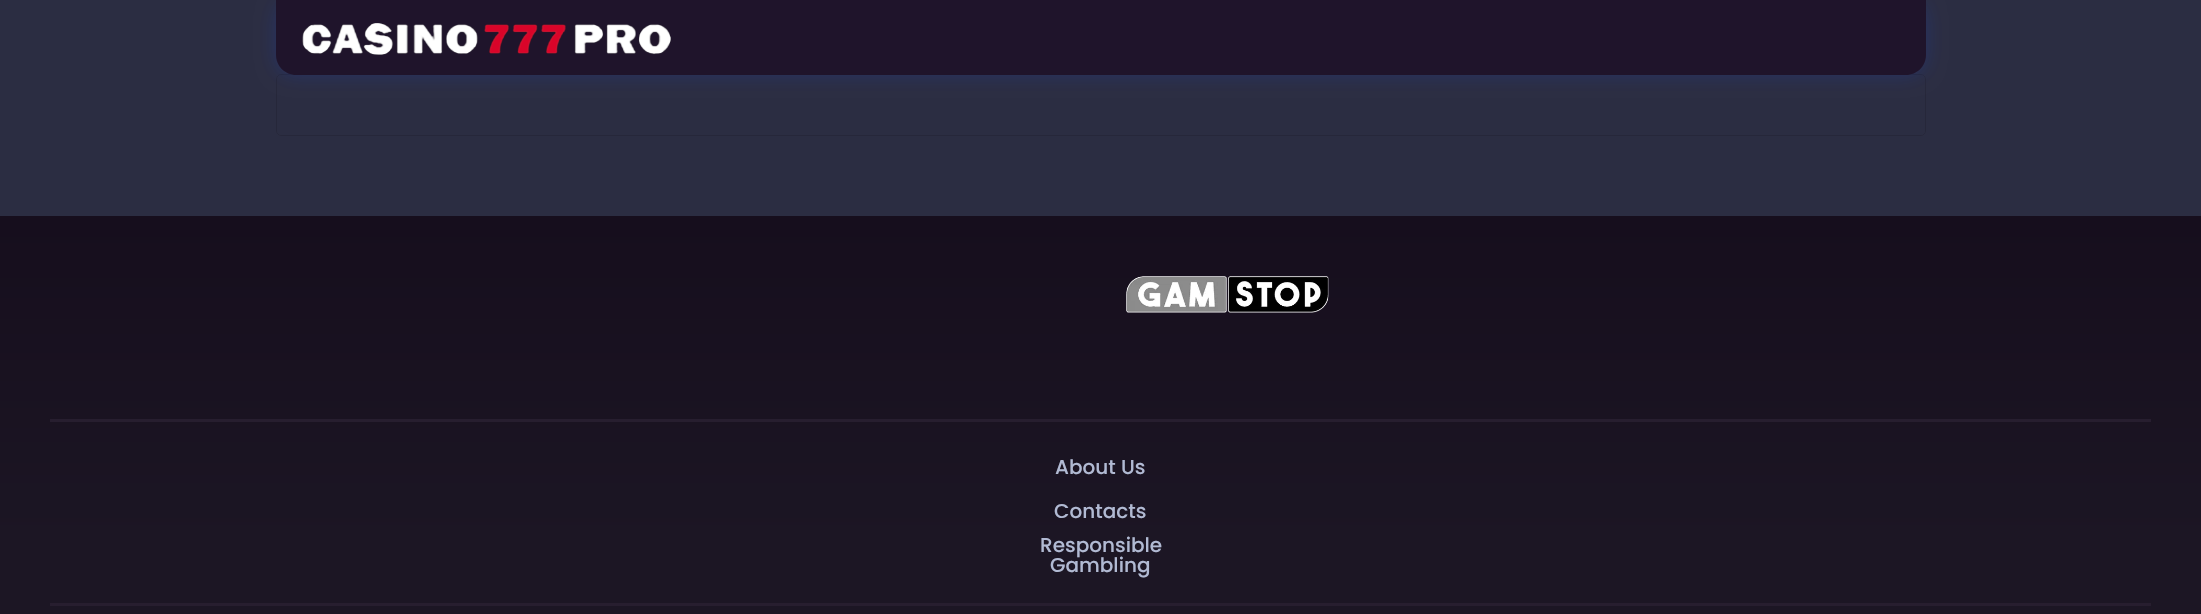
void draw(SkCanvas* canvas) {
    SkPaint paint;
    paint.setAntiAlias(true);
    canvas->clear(0xFF2B2D42);
    paint.setStyle(SkPaint::kStroke_Style);
    paint.setStrokeWidth(1);
    paint.setColor(0xFF26273A);
    canvas->drawRoundRect(SkRect::MakeXYWH(276.5f, 74.5f, 1649, 61), 4.5f, 4.5f, paint);
    paint.setStyle(SkPaint::kFill_Style);
    paint.setColor(0x300E44FE);
    paint.setMaskFilter(SkMaskFilter::MakeBlur(kNormal_SkBlurStyle, 9.5f));
    canvas->drawRoundRect(SkRect::MakeXYWH(276, 0, 1650, 75), 20, 20, paint);
    paint.setMaskFilter(nullptr);
    paint.setColor(0xFF1F142B);
    canvas->drawPath(SkPathBuilder().moveTo(276, 0).lineTo(1926, 0).lineTo(1926, 55).cubicTo(1926, 66, 1917, 75, 1906, 75).lineTo(296, 75).cubicTo(285, 75, 276, 66, 276, 55).close().detach(), paint);
    canvas->drawImageRect(SkImages::DeferredFromEncodedData(SkData::MakeFromFileName("img1.png")), SkRect::MakeXYWH(302, 23, 369, 32), SkSamplingOptions());
    {
        const SkColor colors[] = {0xFF160E1D, 0xFF1C1624};
        const float stops[] = {0, 0.4f};
        const SkPoint ends[] = {{1101, 216}, {1101, 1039}};
        paint.setShader(SkGradientShader::MakeLinear(ends, colors, stops, 2, SkTileMode::kClamp));
        paint.setAlpha(255);
    }
    canvas->drawRect(SkRect::MakeXYWH(0, 216, 2201, 398), paint);
    canvas->drawImageRect(SkImages::DeferredFromEncodedData(SkData::MakeFromFileName("img2.png")), SkRect::MakeXYWH(1126, 276, 203, 37), SkSamplingOptions());
    paint.setShader(nullptr);
    paint.setColor(0xFF271E2F);
    canvas->drawRect(SkRect::MakeXYWH(50, 419, 2101, 3), paint);
    canvas->drawRect(SkRect::MakeXYWH(50, 603, 2101, 3), paint);
    SkFont font1(fontMgr->matchFamilyStyle("Poppins", SkFontStyle(500, SkFontStyle::kNormal_Width, SkFontStyle::kUpright_Slant)), 20);
    font1.setSubpixel(true);
    paint.setColor(0xFFB1BAD3);
    canvas->drawString("About Us", 1055, 474, font1, paint);
    canvas->drawString("Contacts", 1054, 518, font1, paint);
    canvas->drawString("Responsible", 1040, 552, font1, paint);
    canvas->drawString("Gambling", 1050, 572, font1, paint);
}
